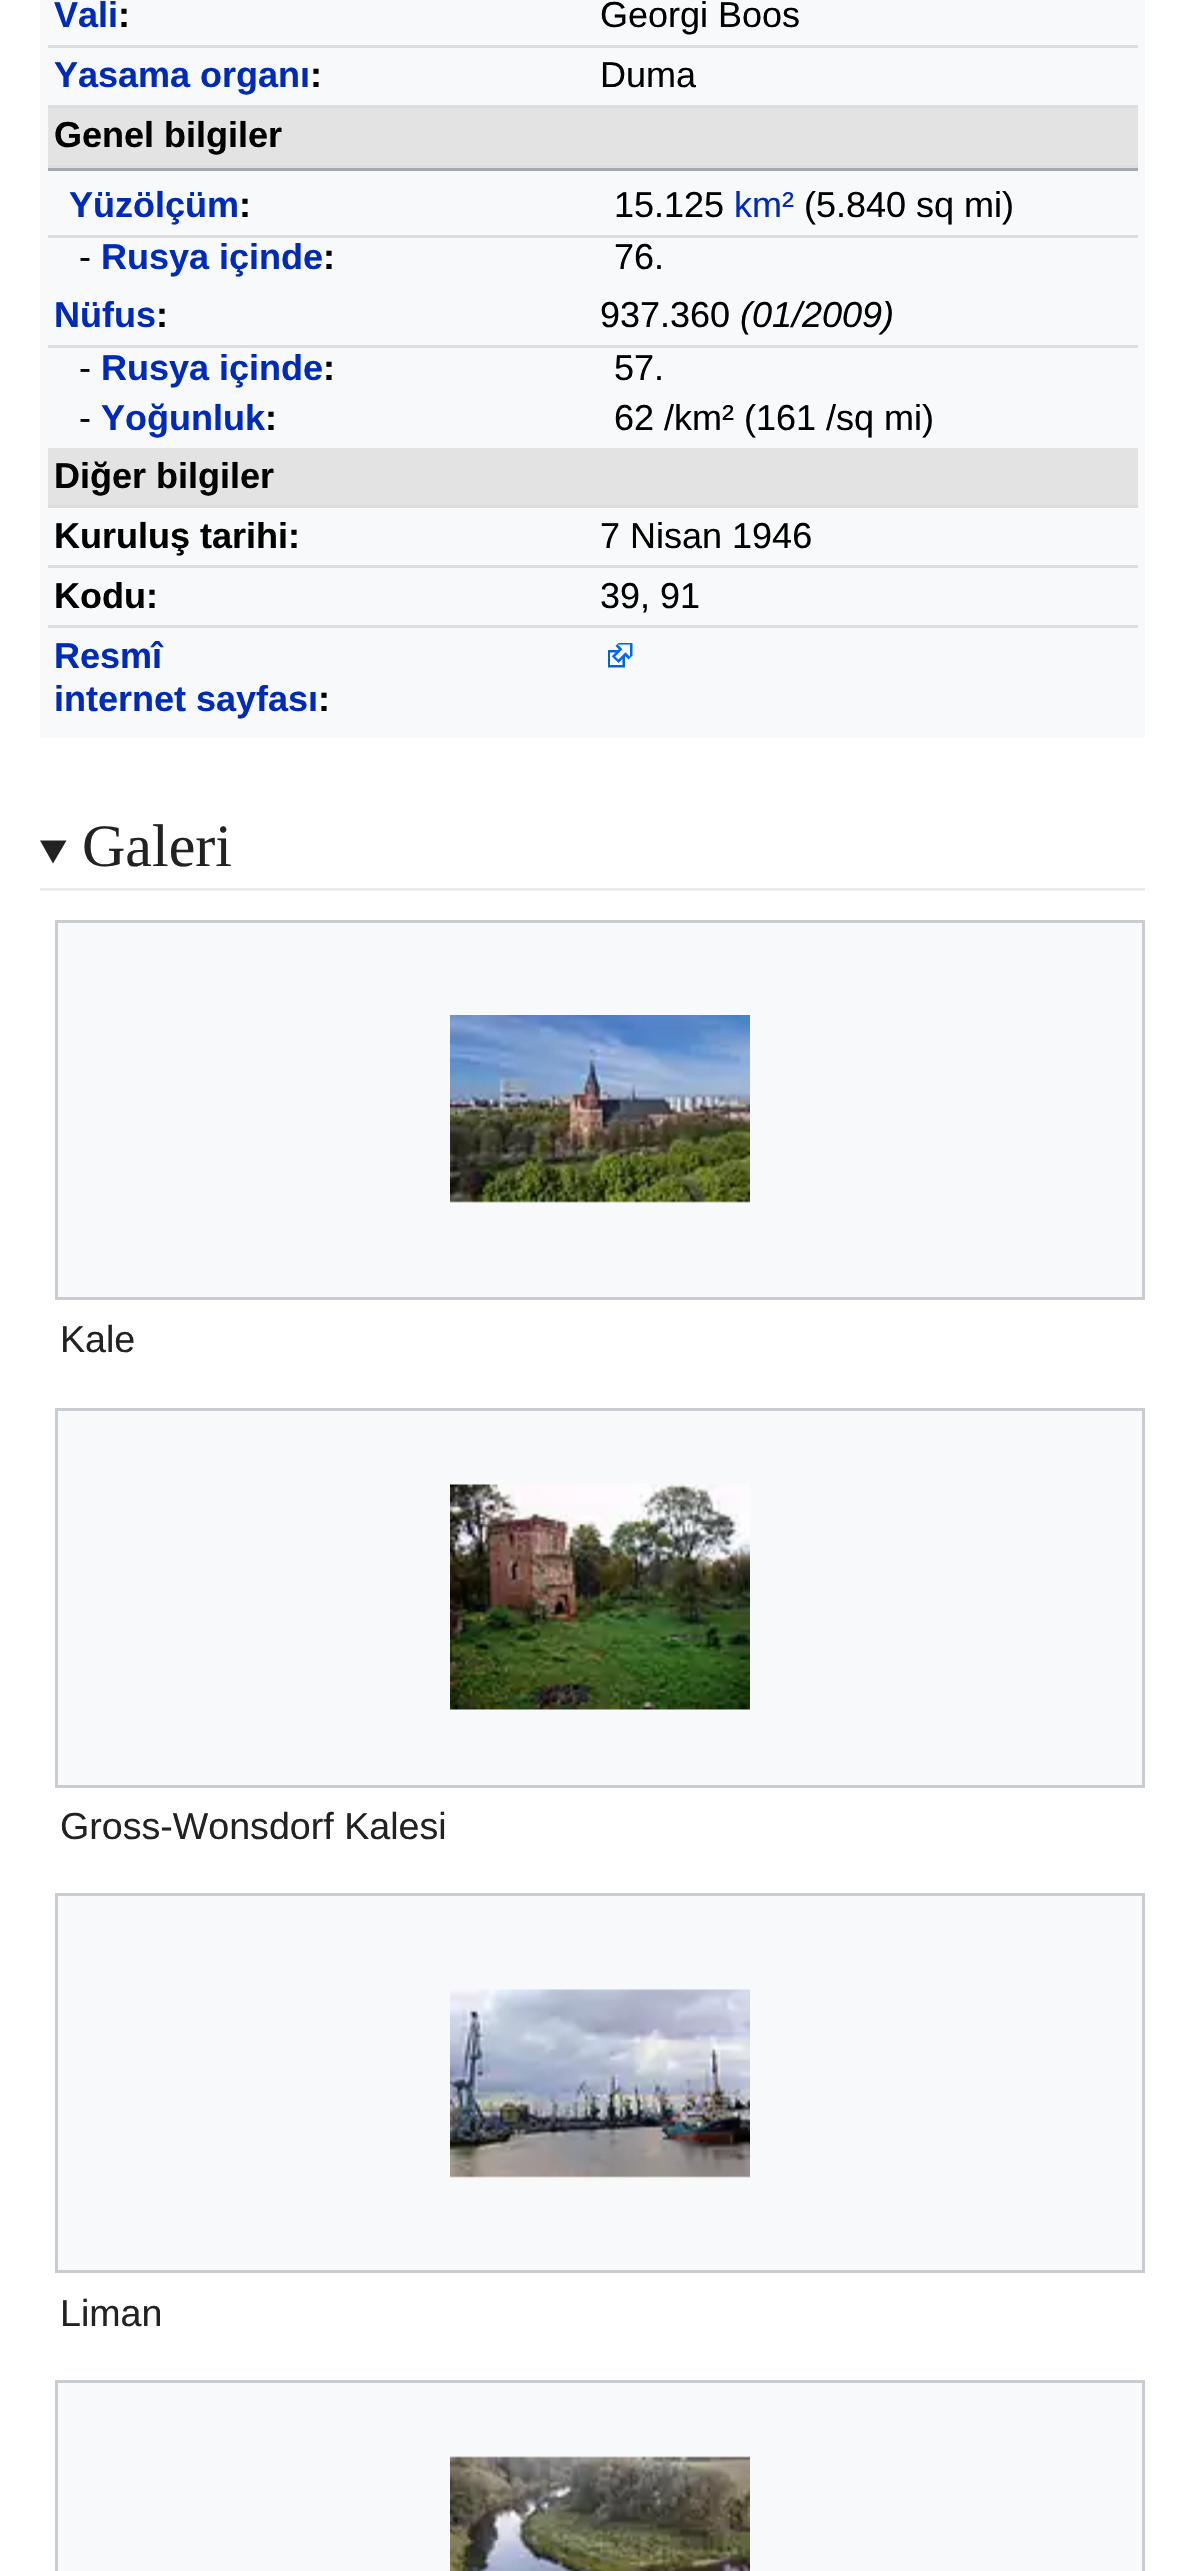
void draw(SkCanvas* canvas) {
    SkPaint paint;
    paint.setAntiAlias(true);
    canvas->clear(0xFFFFFFFF);
    paint.setColor(0xFFF8F9FA);
    canvas->drawRect(SkRect::MakeXYWH(40, 0, 1105, 738), paint);
    paint.setColor(0xFFDDDDDD);
    canvas->drawRect(SkRect::MakeXYWH(48, 45, 1090, 3), paint);
    SkFont font1(fontMgr->matchFamilyStyle("Liberation Sans", SkFontStyle::Bold()), 36);
    font1.setSubpixel(true);
    paint.setColor(0xFF002BB8);
    canvas->drawString("Vali", 54, 27, font1, paint);
    paint.setColor(0xFF000000);
    canvas->drawString(":", 118, 27, font1, paint);
    SkFont font2(fontMgr->matchFamilyStyle("Liberation Sans", SkFontStyle::Normal()), 36);
    font2.setSubpixel(true);
    canvas->drawString("Georgi Boos", 600, 27, font2, paint);
    paint.setColor(0xFFDDDDDD);
    canvas->drawRect(SkRect::MakeXYWH(48, 105, 1090, 3), paint);
    paint.setColor(0xFF002BB8);
    canvas->drawString("Yasama organı", 54, 87, font1, paint);
    paint.setColor(0xFF000000);
    canvas->drawString(":", 310, 87, font1, paint);
    canvas->drawString("Duma", 600, 87, font2, paint);
    paint.setColor(0xFFE3E3E3);
    canvas->drawRect(SkRect::MakeXYWH(48, 108, 1090, 57), paint);
    paint.setColor(0xFFDDDDDD);
    canvas->drawRect(SkRect::MakeXYWH(48, 165, 1090, 3), paint);
    paint.setColor(0xFF000000);
    canvas->drawString("Genel bilgiler", 54, 147, font1, paint);
    paint.setColor(0xFFA2A9B1);
    canvas->drawRect(SkRect::MakeXYWH(48, 168, 1090, 3), paint);
    paint.setColor(0xFFDDDDDD);
    canvas->drawRect(SkRect::MakeXYWH(48, 235, 1090, 3), paint);
    paint.setColor(0xFF002BB8);
    canvas->drawString("Yüzölçüm", 69, 217, font1, paint);
    paint.setColor(0xFF000000);
    canvas->drawString(":", 239, 217, font1, paint);
    canvas->drawString("15.125", 614, 217, font2, paint);
    paint.setColor(0xFF002BB8);
    canvas->drawString("km²", 734, 217, font2, paint);
    paint.setColor(0xFF000000);
    canvas->drawString("(5.840 sq mi)", 804, 217, font2, paint);
    canvas->drawString("-", 79, 269, font2, paint);
    paint.setColor(0xFF002BB8);
    canvas->drawString("Rusya içinde", 101, 269, font1, paint);
    paint.setColor(0xFF000000);
    canvas->drawString(":", 323, 269, font1, paint);
    canvas->drawString("76.", 614, 269, font2, paint);
    paint.setColor(0xFFDDDDDD);
    canvas->drawRect(SkRect::MakeXYWH(48, 345, 1090, 3), paint);
    paint.setColor(0xFF002BB8);
    canvas->drawString("Nüfus", 54, 327, font1, paint);
    paint.setColor(0xFF000000);
    canvas->drawString(":", 156, 327, font1, paint);
    canvas->drawString("937.360", 600, 327, font2, paint);
    SkFont font3(fontMgr->matchFamilyStyle("Liberation Sans", SkFontStyle::Italic()), 36);
    font3.setSubpixel(true);
    canvas->drawString("(01/2009)", 740, 327, font3, paint);
    canvas->drawString("-", 79, 380, font2, paint);
    paint.setColor(0xFF002BB8);
    canvas->drawString("Rusya içinde", 101, 380, font1, paint);
    paint.setColor(0xFF000000);
    canvas->drawString(":", 323, 380, font1, paint);
    canvas->drawString("57.", 614, 380, font2, paint);
    canvas->drawString("-", 79, 430, font2, paint);
    paint.setColor(0xFF002BB8);
    canvas->drawString("Yoğunluk", 101, 430, font1, paint);
    paint.setColor(0xFF000000);
    canvas->drawString(":", 265, 430, font1, paint);
    canvas->drawString("62 /km² (161 /sq mi)", 614, 430, font2, paint);
    paint.setColor(0xFFE3E3E3);
    canvas->drawRect(SkRect::MakeXYWH(48, 448, 1090, 57), paint);
    paint.setColor(0xFFDDDDDD);
    canvas->drawRect(SkRect::MakeXYWH(48, 505, 1090, 3), paint);
    paint.setColor(0xFF000000);
    canvas->drawString("Diğer bilgiler", 54, 488, font1, paint);
    paint.setColor(0xFFDDDDDD);
    canvas->drawRect(SkRect::MakeXYWH(48, 565, 1090, 3), paint);
    paint.setColor(0xFF000000);
    canvas->drawString("Kuruluş tarihi:", 54, 548, font1, paint);
    canvas->drawString("7 Nisan 1946", 600, 548, font2, paint);
    paint.setColor(0xFFDDDDDD);
    canvas->drawRect(SkRect::MakeXYWH(48, 625, 1090, 3), paint);
    paint.setColor(0xFF000000);
    canvas->drawString("Kodu:", 54, 608, font1, paint);
    canvas->drawString("39, 91", 600, 608, font2, paint);
    paint.setColor(0xFF002BB8);
    canvas->drawString("Resmî", 54, 668, font1, paint);
    canvas->drawString("internet sayfası", 54, 711, font1, paint);
    paint.setColor(0xFF000000);
    canvas->drawString(":", 318, 711, font1, paint);
    canvas->drawImageRect(SkImages::DeferredFromEncodedData(SkData::MakeFromFileName("img1.png")), SkRect::MakeXYWH(608, 643, 25, 25), SkSamplingOptions());
    paint.setColor(0xFFEAECF0);
    canvas->drawRect(SkRect::MakeXYWH(40, 888, 1105, 3), paint);
    paint.setColor(0xFF222222);
    canvas->drawPath(SkPathBuilder().moveTo(40, 840.5f).lineTo(66.5f, 840.5f).lineTo(53, 863.5f).close().detach(), paint);
    SkFont font4(fontMgr->matchFamilyStyle("Liberation Serif", SkFontStyle::Normal()), 60);
    font4.setSubpixel(true);
    canvas->drawString("Galeri", 82, 866, font4, paint);
    paint.setColor(0xFFF8F9FA);
    canvas->drawRect(SkRect::MakeXYWH(56.5f, 921.5f, 1087, 377), paint);
    paint.setStyle(SkPaint::kStroke_Style);
    paint.setStrokeWidth(3);
    paint.setColor(0xFFC8CCD1);
    canvas->drawRect(SkRect::MakeXYWH(56.5f, 921.5f, 1087, 377), paint);
    paint.setStyle(SkPaint::kFill_Style);
    paint.setColor(0xFFFFFFFF);
    canvas->drawRect(SkRect::MakeXYWH(450, 1201, 300, 2), paint);
    canvas->drawImageRect(SkImages::DeferredFromEncodedData(SkData::MakeFromFileName("img2.png")), SkRect::MakeXYWH(450, 1015, 300, 188), SkSamplingOptions());
    SkFont font5(fontMgr->matchFamilyStyle("Liberation Sans", SkFontStyle::Normal()), 37.6f);
    font5.setSubpixel(true);
    paint.setColor(0xFF222222);
    canvas->drawString("Kale", 60, 1352, font5, paint);
    paint.setColor(0xFFF8F9FA);
    canvas->drawRect(SkRect::MakeXYWH(56.5f, 1409.5f, 1087, 377), paint);
    paint.setStyle(SkPaint::kStroke_Style);
    paint.setColor(0xFFC8CCD1);
    canvas->drawRect(SkRect::MakeXYWH(56.5f, 1409.5f, 1087, 377), paint);
    paint.setStyle(SkPaint::kFill_Style);
    paint.setColor(0xFFFFFFFF);
    canvas->drawRect(SkRect::MakeXYWH(450, 1709, 300, 1), paint);
    canvas->drawImageRect(SkImages::DeferredFromEncodedData(SkData::MakeFromFileName("img3.png")), SkRect::MakeXYWH(450, 1484, 300, 226), SkSamplingOptions());
    paint.setColor(0xFF222222);
    canvas->drawString("Gross-Wonsdorf Kalesi", 60, 1839, font5, paint);
    paint.setColor(0xFFF8F9FA);
    canvas->drawRect(SkRect::MakeXYWH(56.5f, 1894.5f, 1087, 377), paint);
    paint.setStyle(SkPaint::kStroke_Style);
    paint.setColor(0xFFC8CCD1);
    canvas->drawRect(SkRect::MakeXYWH(56.5f, 1894.5f, 1087, 377), paint);
    paint.setStyle(SkPaint::kFill_Style);
    paint.setColor(0xFFFFFFFF);
    canvas->drawRect(SkRect::MakeXYWH(450, 2176, 300, 2), paint);
    canvas->drawImageRect(SkImages::DeferredFromEncodedData(SkData::MakeFromFileName("img4.png")), SkRect::MakeXYWH(450, 1989, 300, 189), SkSamplingOptions());
    paint.setColor(0xFF222222);
    canvas->drawString("Liman", 60, 2326, font5, paint);
    paint.setColor(0xFFF8F9FA);
    canvas->drawRect(SkRect::MakeXYWH(56.5f, 2381.5f, 1087, 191), paint);
    paint.setStyle(SkPaint::kStroke_Style);
    paint.setColor(0xFFC8CCD1);
    canvas->drawRect(SkRect::MakeXYWH(56.5f, 2381.5f, 1087, 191), paint);
    canvas->drawImageRect(SkImages::DeferredFromEncodedData(SkData::MakeFromFileName("img5.png")), SkRect::MakeXYWH(450, 2456, 300, 115), SkSamplingOptions());
}
